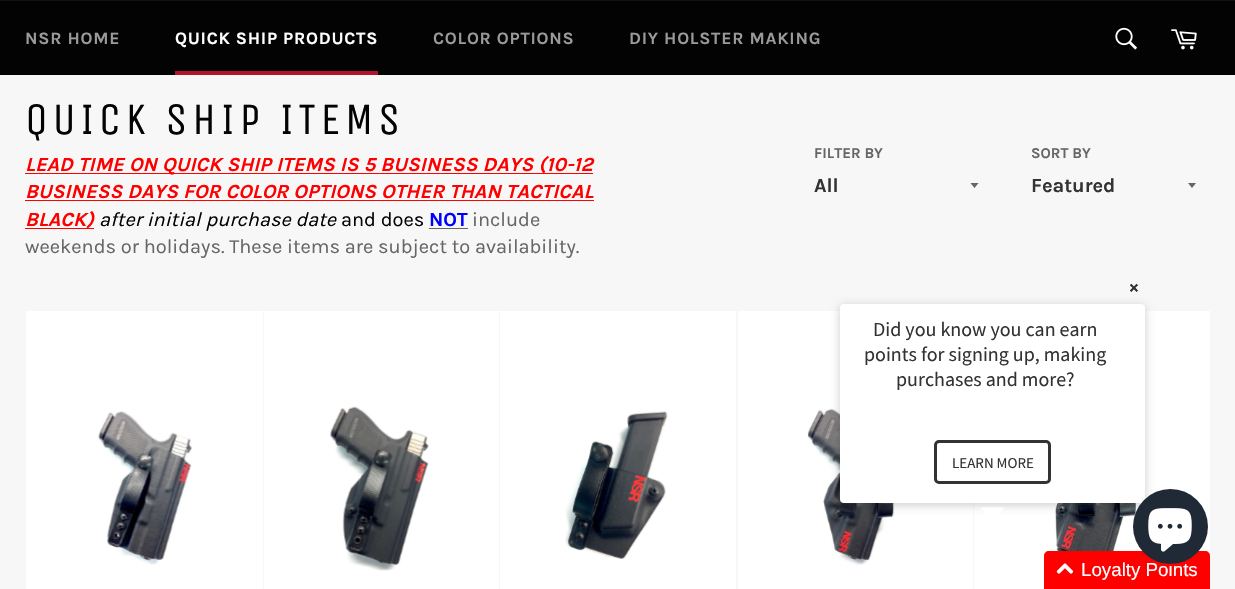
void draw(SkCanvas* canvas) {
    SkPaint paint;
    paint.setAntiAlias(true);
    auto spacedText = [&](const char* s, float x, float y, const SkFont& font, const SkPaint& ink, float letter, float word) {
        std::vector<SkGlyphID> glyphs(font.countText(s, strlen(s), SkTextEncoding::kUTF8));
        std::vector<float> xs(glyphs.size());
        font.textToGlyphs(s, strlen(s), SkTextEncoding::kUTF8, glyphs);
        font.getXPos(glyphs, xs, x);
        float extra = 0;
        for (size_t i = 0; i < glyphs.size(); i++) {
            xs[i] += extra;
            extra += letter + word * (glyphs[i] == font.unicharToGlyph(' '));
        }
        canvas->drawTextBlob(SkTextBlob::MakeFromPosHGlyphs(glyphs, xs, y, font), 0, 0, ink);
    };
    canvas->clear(0xFFF7F7F7);
    paint.setColor(0xFF030303);
    canvas->drawRect(SkRect::MakeXYWH(0, 1, 1235, 74), paint);
    paint.setColor(0xFF101010);
    canvas->drawRect(SkRect::MakeXYWH(0, 0, 1235, 1), paint);
    SkFont font1(fontMgr->matchFamilyStyle("Karla", SkFontStyle::Bold()), 17.5f);
    font1.setSubpixel(true);
    paint.setColor(0xFF9A9A9A);
    spacedText("NSR HOME", 25, 44, font1, paint, 0.75f, 0);
    paint.setColor(0xFFFFFFFF);
    spacedText("QUICK SHIP PRODUCTS", 175, 44, font1, paint, 0.75f, 0);
    paint.setColor(0xFFB3112C);
    canvas->drawRect(SkRect::MakeXYWH(175, 71, 203, 4), paint);
    paint.setColor(0xFF9A9A9A);
    spacedText("COLOR OPTIONS", 433, 44, font1, paint, 0.75f, 0);
    spacedText("DIY HOLSTER MAKING", 629, 44, font1, paint, 0.75f, 0);
    canvas->drawImageRect(SkImages::DeferredFromEncodedData(SkData::MakeFromFileName("img1.png")), SkRect::MakeXYWH(1115, 27, 22, 23), SkSamplingOptions());
    canvas->drawImageRect(SkImages::DeferredFromEncodedData(SkData::MakeFromFileName("img2.png")), SkRect::MakeXYWH(1171, 29, 26, 21), SkSamplingOptions());
    SkFont font2(fontMgr->matchFamilyStyle("Unica One", SkFontStyle::Normal()), 45);
    font2.setSubpixel(true);
    paint.setColor(0xFF030303);
    spacedText("QUICK SHIP ITEMS", 25, 134, font2, paint, 4.5f, 0);
    paint.setColor(0xFFFF0000);
    canvas->drawRect(SkRect::MakeXYWH(25, 173, 568, 1), paint);
    SkFont font3(fontMgr->matchFamilyStyle("Karla", SkFontStyle::BoldItalic()), 20);
    font3.setSubpixel(true);
    canvas->drawString("LEAD TIME ON QUICK SHIP ITEMS IS 5 BUSINESS DAYS (10-12", 25, 171, font3, paint);
    canvas->drawString("BUSINESS DAYS FOR COLOR OPTIONS OTHER THAN TACTICAL", 25, 198, font3, paint);
    canvas->drawRect(SkRect::MakeXYWH(25, 200, 569, 1), paint);
    canvas->drawRect(SkRect::MakeXYWH(25, 228, 69, 1), paint);
    canvas->drawString("BLACK)", 25, 226, font3, paint);
    SkFont font4(fontMgr->matchFamilyStyle("Karla", SkFontStyle::Italic()), 20);
    font4.setSubpixel(true);
    paint.setColor(0xFF030303);
    canvas->drawString("after initial purchase date", 99, 226, font4, paint);
    SkFont font5(fontMgr->matchFamilyStyle("Karla", SkFontStyle::Normal()), 20);
    font5.setSubpixel(true);
    canvas->drawString("and does", 341, 226, font5, paint);
    SkFont font6(fontMgr->matchFamilyStyle("Karla", SkFontStyle::Bold()), 20);
    font6.setSubpixel(true);
    paint.setColor(0xFF0000FF);
    canvas->drawString("NOT", 429, 226, font6, paint);
    paint.setColor(0xFF666666);
    canvas->drawRect(SkRect::MakeXYWH(429, 228, 39, 1), paint);
    canvas->drawString("include", 472, 226, font5, paint);
    canvas->drawString("weekends or holidays. These items are subject to availability.", 25, 253, font5, paint);
    SkFont font7(fontMgr->matchFamilyStyle("Karla", SkFontStyle::Bold()), 15);
    font7.setSubpixel(true);
    canvas->drawString("FILTER BY", 814, 158, font7, paint);
    canvas->save();
    canvas->clipRect(SkRect::MakeXYWH(970, 183, 10, 6));
    canvas->drawPath(SkPathBuilder().moveTo(970, 182.5f).lineTo(974.5f, 188).lineTo(979, 182.5f).close().detach(), paint);
    canvas->restore();
    paint.setColor(0xFF333333);
    canvas->drawString("All", 814, 192, font6, paint);
    paint.setColor(0xFF666666);
    canvas->drawString("SORT BY", 1031, 158, font7, paint);
    canvas->save();
    canvas->clipRect(SkRect::MakeXYWH(1188, 183, 10, 6));
    canvas->drawPath(SkPathBuilder().moveTo(1187.5f, 182.5f).lineTo(1192, 188).lineTo(1196.5f, 182.5f).close().detach(), paint);
    canvas->restore();
    paint.setColor(0xFF333333);
    canvas->drawString("Featured", 1031, 192, font6, paint);
    paint.setColor(0xFFFFFFFF);
    canvas->drawRect(SkRect::MakeXYWH(26, 311, 237, 278), paint);
    canvas->drawImageRect(SkImages::DeferredFromEncodedData(SkData::MakeFromFileName("img3.png")), SkRect::MakeXYWH(98, 411, 94, 154), SkSamplingOptions());
    canvas->drawRect(SkRect::MakeXYWH(264, 311, 235, 278), paint);
    canvas->drawImageRect(SkImages::DeferredFromEncodedData(SkData::MakeFromFileName("img4.png")), SkRect::MakeXYWH(330, 406, 99, 165), SkSamplingOptions());
    canvas->drawRect(SkRect::MakeXYWH(500, 311, 236, 278), paint);
    canvas->drawImageRect(SkImages::DeferredFromEncodedData(SkData::MakeFromFileName("img5.png")), SkRect::MakeXYWH(565, 411, 103, 148), SkSamplingOptions());
    canvas->drawRect(SkRect::MakeXYWH(738, 311, 235, 278), paint);
    canvas->drawImageRect(SkImages::DeferredFromEncodedData(SkData::MakeFromFileName("img6.png")), SkRect::MakeXYWH(807, 408, 95, 157), SkSamplingOptions());
    canvas->drawRect(SkRect::MakeXYWH(974, 311, 236, 278), paint);
    canvas->drawImageRect(SkImages::DeferredFromEncodedData(SkData::MakeFromFileName("img7.png")), SkRect::MakeXYWH(1040, 503, 101, 66), SkSamplingOptions());
    SkFont font8(fontMgr->matchFamilyStyle("Source Sans Pro", SkFontStyle::Bold()), 18.75f);
    font8.setSubpixel(true);
    paint.setColor(0xFF333333);
    canvas->drawString("×", 1129, 294, font8, paint);
    paint.setColor(0x33000000);
    paint.setMaskFilter(SkMaskFilter::MakeBlur(kNormal_SkBlurStyle, 5));
    canvas->drawRoundRect(SkRect::MakeXYWH(840, 306, 305, 199), 4, 4, paint);
    paint.setMaskFilter(nullptr);
    paint.setColor(0xFFFFFFFF);
    canvas->drawRoundRect(SkRect::MakeXYWH(840, 304, 305, 199), 4, 4, paint);
    SkFont font9(fontMgr->matchFamilyStyle("Source Sans Pro", SkFontStyle::Normal()), 20);
    font9.setSubpixel(true);
    paint.setColor(0xFF333333);
    canvas->drawString("Did you know you can earn", 873, 336, font9, paint);
    canvas->drawString("points for signing up, making", 864, 361, font9, paint);
    canvas->drawString("purchases and more?", 896, 386, font9, paint);
    paint.setStyle(SkPaint::kStroke_Style);
    paint.setStrokeWidth(3);
    canvas->drawRoundRect(SkRect::MakeXYWH(935.5f, 441.5f, 114, 41), 3.5f, 3.5f, paint);
    SkFont font10(fontMgr->matchFamilyStyle("Source Sans Pro", SkFontStyle::Normal()), 15);
    font10.setSubpixel(true);
    paint.setStyle(SkPaint::kFill_Style);
    canvas->drawString("LEARN MORE", 952, 468, font10, paint);
    paint.setColor(0xFFFFFFFF);
    canvas->drawPath(SkPathBuilder().moveTo(980, 507.5f).lineTo(1005, 507.5f).lineTo(992.5f, 520).close().detach(), paint);
    paint.setColor(0xFFFF0000);
    canvas->drawPath(SkPathBuilder().moveTo(1049, 551).lineTo(1205, 551).cubicTo(1208, 551, 1210, 553, 1210, 556).lineTo(1210, 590).lineTo(1044, 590).lineTo(1044, 556).cubicTo(1044, 553, 1046, 551, 1049, 551).close().detach(), paint);
    canvas->drawImageRect(SkImages::DeferredFromEncodedData(SkData::MakeFromFileName("img8.png")), SkRect::MakeXYWH(1056, 563, 18, 11), SkSamplingOptions());
    SkFont font11(fontMgr->matchFamilyStyle("Liberation Sans", SkFontStyle::Normal()), 18.75f);
    font11.setSubpixel(true);
    paint.setColor(0xFFFFFFFF);
    canvas->drawString("Loyalty Points", 1081, 576, font11, paint);
    paint.setColor(0xFF202A36);
    canvas->drawCircle(1170.5f, 526.5f, 37.5f, paint);
    canvas->drawImageRect(SkImages::DeferredFromEncodedData(SkData::MakeFromFileName("img9.png")), SkRect::MakeXYWH(1148, 508, 44, 44), SkSamplingOptions());
}
